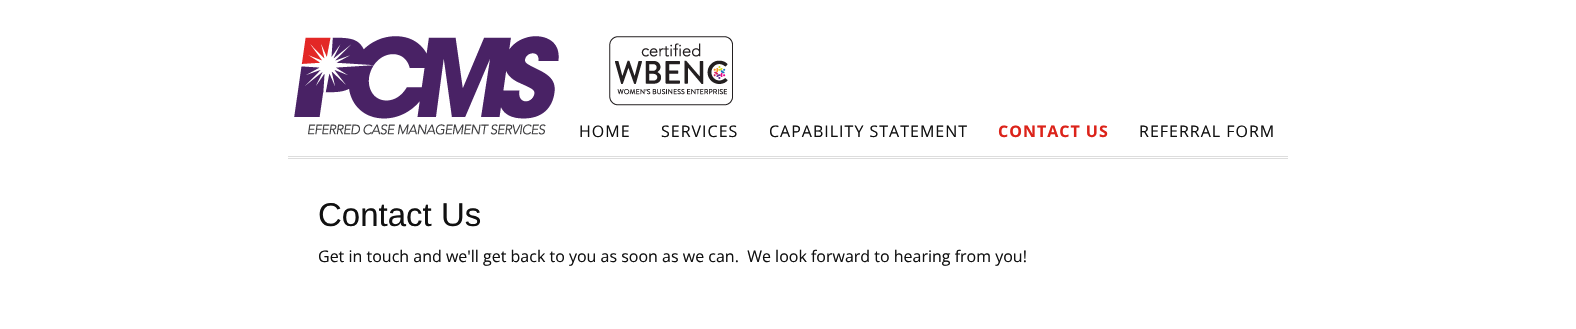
void draw(SkCanvas* canvas) {
    SkPaint paint;
    paint.setAntiAlias(true);
    auto spacedText = [&](const char* s, float x, float y, const SkFont& font, const SkPaint& ink, float letter, float word) {
        std::vector<SkGlyphID> glyphs(font.countText(s, strlen(s), SkTextEncoding::kUTF8));
        std::vector<float> xs(glyphs.size());
        font.textToGlyphs(s, strlen(s), SkTextEncoding::kUTF8, glyphs);
        font.getXPos(glyphs, xs, x);
        float extra = 0;
        for (size_t i = 0; i < glyphs.size(); i++) {
            xs[i] += extra;
            extra += letter + word * (glyphs[i] == font.unicharToGlyph(' '));
        }
        canvas->drawTextBlob(SkTextBlob::MakeFromPosHGlyphs(glyphs, xs, y, font), 0, 0, ink);
    };
    canvas->clear(0xFFFFFFFF);
    paint.setColor(0xFFDDDDDD);
    canvas->drawRect(SkRect::MakeXYWH(288, 156, 1000, 1), paint);
    canvas->drawRect(SkRect::MakeXYWH(288, 158, 1000, 1), paint);
    canvas->drawImageRect(SkImages::DeferredFromEncodedData(SkData::MakeFromFileName("img1.png")), SkRect::MakeXYWH(294, 36, 439, 99), SkSamplingOptions());
    SkFont font1(fontMgr->matchFamilyStyle("Open Sans", SkFontStyle::Normal()), 16);
    font1.setSubpixel(true);
    paint.setColor(0xFF111111);
    spacedText("HOME", 579, 137, font1, paint, 1, 0);
    spacedText("SERVICES", 661, 137, font1, paint, 1, 0);
    spacedText("CAPABILITY STATEMENT", 769, 137, font1, paint, 1, 0);
    SkFont font2(fontMgr->matchFamilyStyle("Open Sans", SkFontStyle::Bold()), 16);
    font2.setSubpixel(true);
    paint.setColor(0xFFDC231A);
    spacedText("CONTACT US", 998, 137, font2, paint, 1, 0);
    paint.setColor(0xFF111111);
    spacedText("REFERRAL FORM", 1139, 137, font1, paint, 1, 0);
    SkFont font3(fontMgr->matchFamilyStyle("Liberation Sans", SkFontStyle::Normal()), 33);
    font3.setSubpixel(true);
    canvas->drawString("Contact Us", 318, 226, font3, paint);
    canvas->drawString("Get in touch and we'll get back to you as soon as we can.  We look forward to hearing from you!", 318, 262, font1, paint);
}
